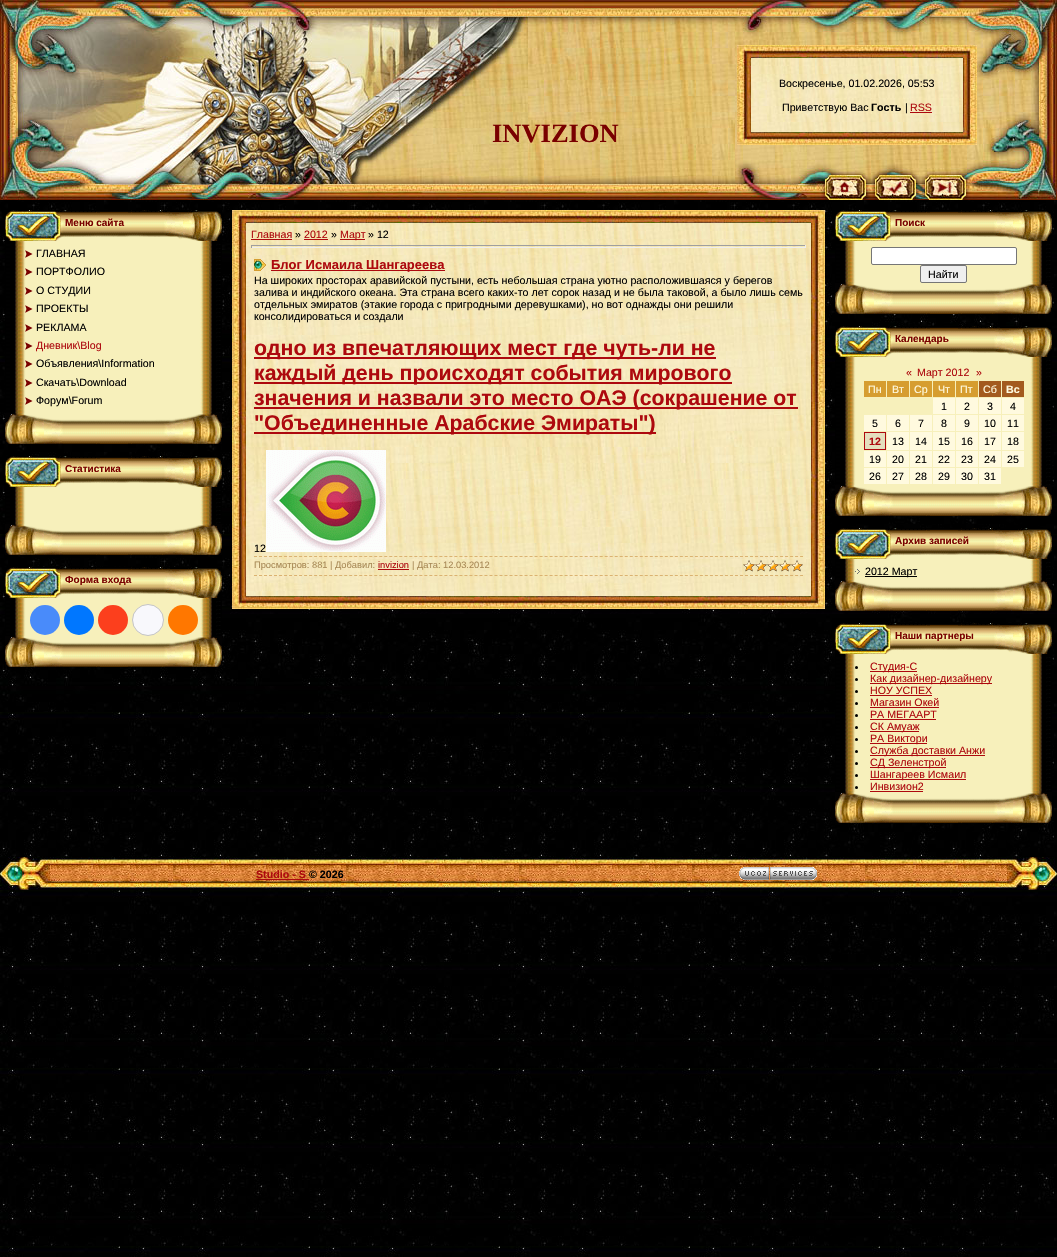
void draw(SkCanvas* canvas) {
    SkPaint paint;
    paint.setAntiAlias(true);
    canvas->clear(0xFFFFFFFF);
    canvas->drawImageRect(SkImages::DeferredFromEncodedData(SkData::MakeFromFileName("img1.png")), SkRect::MakeXYWH(0, 200, 1057, 1057), SkSamplingOptions());
    canvas->drawImageRect(SkImages::DeferredFromEncodedData(SkData::MakeFromFileName("img14.png")), SkRect::MakeXYWH(735, 0, 322, 175), SkSamplingOptions());
    canvas->drawImageRect(SkImages::DeferredFromEncodedData(SkData::MakeFromFileName("img2.png")), SkRect::MakeXYWH(737, 45, 14, 13), SkSamplingOptions());
    canvas->drawImageRect(SkImages::DeferredFromEncodedData(SkData::MakeFromFileName("img3.png")), SkRect::MakeXYWH(751, 45, 212, 13), SkSamplingOptions());
    canvas->drawImageRect(SkImages::DeferredFromEncodedData(SkData::MakeFromFileName("img4.png")), SkRect::MakeXYWH(963, 45, 14, 13), SkSamplingOptions());
    canvas->drawImageRect(SkImages::DeferredFromEncodedData(SkData::MakeFromFileName("img5.png")), SkRect::MakeXYWH(737, 58, 14, 74), SkSamplingOptions());
    canvas->drawImageRect(SkImages::DeferredFromEncodedData(SkData::MakeFromFileName("img6.png")), SkRect::MakeXYWH(751, 58, 212, 74), SkSamplingOptions());
    SkFont font1(fontMgr->matchFamilyStyle("Liberation Sans", SkFontStyle::Normal()), 10.67f);
    font1.setSubpixel(true);
    paint.setColor(0xFF000000);
    canvas->drawString("Воскресенье, 01.02.2026, 05:53", 779, 87, font1, paint);
    canvas->drawString("Приветствую Вас", 782, 111, font1, paint);
    SkFont font2(fontMgr->matchFamilyStyle("Liberation Sans", SkFontStyle::Bold()), 10.67f);
    font2.setSubpixel(true);
    canvas->drawString("Гость", 871, 111, font2, paint);
    canvas->drawString("|", 905, 111, font1, paint);
    paint.setColor(0xFFAD090E);
    canvas->drawString("RSS", 910, 111, font1, paint);
    canvas->drawRect(SkRect::MakeXYWH(910, 112, 22, 1), paint);
    canvas->drawImageRect(SkImages::DeferredFromEncodedData(SkData::MakeFromFileName("img7.png")), SkRect::MakeXYWH(963, 58, 14, 74), SkSamplingOptions());
    canvas->drawImageRect(SkImages::DeferredFromEncodedData(SkData::MakeFromFileName("img8.png")), SkRect::MakeXYWH(737, 132, 14, 13), SkSamplingOptions());
    canvas->drawImageRect(SkImages::DeferredFromEncodedData(SkData::MakeFromFileName("img9.png")), SkRect::MakeXYWH(751, 132, 212, 13), SkSamplingOptions());
    canvas->drawImageRect(SkImages::DeferredFromEncodedData(SkData::MakeFromFileName("img10.png")), SkRect::MakeXYWH(963, 132, 14, 13), SkSamplingOptions());
    canvas->drawImageRect(SkImages::DeferredFromEncodedData(SkData::MakeFromFileName("img11.png")), SkRect::MakeXYWH(528, 0, 207, 200), SkSamplingOptions());
    canvas->drawImageRect(SkImages::DeferredFromEncodedData(SkData::MakeFromFileName("img12.png")), SkRect::MakeXYWH(0, 0, 377, 200), SkSamplingOptions());
    canvas->drawImageRect(SkImages::DeferredFromEncodedData(SkData::MakeFromFileName("img13.png")), SkRect::MakeXYWH(377, 0, 151, 200), SkSamplingOptions());
    SkFont font3(fontMgr->matchFamilyStyle("Liberation Serif", SkFontStyle::Bold()), 26.5f);
    font3.setSubpixel(true);
    paint.setColor(0xFF790000);
    canvas->drawString("INVIZION", 492, 142, font3, paint);
    canvas->drawImageRect(SkImages::DeferredFromEncodedData(SkData::MakeFromFileName("img15.png")), SkRect::MakeXYWH(735, 175, 90, 25), SkSamplingOptions());
    canvas->drawImageRect(SkImages::DeferredFromEncodedData(SkData::MakeFromFileName("img16.png")), SkRect::MakeXYWH(825, 175, 41, 25), SkSamplingOptions());
    canvas->drawImageRect(SkImages::DeferredFromEncodedData(SkData::MakeFromFileName("img17.png")), SkRect::MakeXYWH(866, 175, 9, 25), SkSamplingOptions());
    canvas->drawImageRect(SkImages::DeferredFromEncodedData(SkData::MakeFromFileName("img18.png")), SkRect::MakeXYWH(875, 175, 41, 25), SkSamplingOptions());
    canvas->drawImageRect(SkImages::DeferredFromEncodedData(SkData::MakeFromFileName("img19.png")), SkRect::MakeXYWH(916, 175, 9, 25), SkSamplingOptions());
    canvas->drawImageRect(SkImages::DeferredFromEncodedData(SkData::MakeFromFileName("img20.png")), SkRect::MakeXYWH(925, 175, 41, 25), SkSamplingOptions());
    canvas->drawImageRect(SkImages::DeferredFromEncodedData(SkData::MakeFromFileName("img21.png")), SkRect::MakeXYWH(966, 175, 91, 25), SkSamplingOptions());
    canvas->drawImageRect(SkImages::DeferredFromEncodedData(SkData::MakeFromFileName("img22.png")), SkRect::MakeXYWH(5, 242, 217, 171), SkSamplingOptions());
    canvas->drawImageRect(SkImages::DeferredFromEncodedData(SkData::MakeFromFileName("img23.png")), SkRect::MakeXYWH(5, 210, 217, 32), SkSamplingOptions());
    SkFont font4(fontMgr->matchFamilyStyle("Liberation Sans", SkFontStyle::Bold()), 10);
    font4.setSubpixel(true);
    canvas->drawString("Меню сайта", 65, 226, font4, paint);
    canvas->drawImageRect(SkImages::DeferredFromEncodedData(SkData::MakeFromFileName("img24.png")), SkRect::MakeXYWH(25, 250, 8, 8), SkSamplingOptions());
    paint.setColor(0xFF000000);
    canvas->drawString("ГЛАВНАЯ", 36, 257, font1, paint);
    canvas->drawImageRect(SkImages::DeferredFromEncodedData(SkData::MakeFromFileName("img25.png")), SkRect::MakeXYWH(25, 268, 8, 8), SkSamplingOptions());
    canvas->drawString("ПОРТФОЛИО", 36, 275, font1, paint);
    canvas->drawImageRect(SkImages::DeferredFromEncodedData(SkData::MakeFromFileName("img26.png")), SkRect::MakeXYWH(25, 287, 8, 8), SkSamplingOptions());
    canvas->drawString("О СТУДИИ", 36, 294, font1, paint);
    canvas->drawImageRect(SkImages::DeferredFromEncodedData(SkData::MakeFromFileName("img27.png")), SkRect::MakeXYWH(25, 305, 8, 8), SkSamplingOptions());
    canvas->drawString("ПРОЕКТЫ", 36, 312, font1, paint);
    canvas->drawImageRect(SkImages::DeferredFromEncodedData(SkData::MakeFromFileName("img25.png")), SkRect::MakeXYWH(25, 324, 8, 8), SkSamplingOptions());
    canvas->drawString("РЕКЛАМА", 36, 331, font1, paint);
    canvas->drawImageRect(SkImages::DeferredFromEncodedData(SkData::MakeFromFileName("img24.png")), SkRect::MakeXYWH(25, 342, 8, 8), SkSamplingOptions());
    paint.setColor(0xFFAD090E);
    canvas->drawString("Дневник\\Blog", 36, 349, font1, paint);
    canvas->drawImageRect(SkImages::DeferredFromEncodedData(SkData::MakeFromFileName("img25.png")), SkRect::MakeXYWH(25, 360, 8, 8), SkSamplingOptions());
    paint.setColor(0xFF000000);
    canvas->drawString("Объявления\\Information", 36, 367, font1, paint);
    canvas->drawImageRect(SkImages::DeferredFromEncodedData(SkData::MakeFromFileName("img26.png")), SkRect::MakeXYWH(25, 379, 8, 8), SkSamplingOptions());
    canvas->drawString("Скачать\\Download", 36, 386, font1, paint);
    canvas->drawImageRect(SkImages::DeferredFromEncodedData(SkData::MakeFromFileName("img27.png")), SkRect::MakeXYWH(25, 397, 8, 8), SkSamplingOptions());
    canvas->drawString("Форум\\Forum", 36, 404, font1, paint);
    canvas->drawImageRect(SkImages::DeferredFromEncodedData(SkData::MakeFromFileName("img28.png")), SkRect::MakeXYWH(5, 413, 217, 31), SkSamplingOptions());
    canvas->drawImageRect(SkImages::DeferredFromEncodedData(SkData::MakeFromFileName("img29.png")), SkRect::MakeXYWH(5, 488, 217, 36), SkSamplingOptions());
    canvas->drawImageRect(SkImages::DeferredFromEncodedData(SkData::MakeFromFileName("img23.png")), SkRect::MakeXYWH(5, 456, 217, 32), SkSamplingOptions());
    paint.setColor(0xFF790000);
    canvas->drawString("Статистика", 65, 472, font4, paint);
    canvas->drawImageRect(SkImages::DeferredFromEncodedData(SkData::MakeFromFileName("img28.png")), SkRect::MakeXYWH(5, 524, 217, 31), SkSamplingOptions());
    canvas->drawImageRect(SkImages::DeferredFromEncodedData(SkData::MakeFromFileName("img30.png")), SkRect::MakeXYWH(5, 599, 217, 37), SkSamplingOptions());
    canvas->drawImageRect(SkImages::DeferredFromEncodedData(SkData::MakeFromFileName("img23.png")), SkRect::MakeXYWH(5, 567, 217, 32), SkSamplingOptions());
    canvas->drawString("Форма входа", 65, 583, font4, paint);
    paint.setColor(0xFF498BFA);
    canvas->drawCircle(45, 620, 15, paint);
    paint.setColor(0xFF0077FF);
    canvas->drawCircle(79, 620, 15, paint);
    paint.setColor(0xFFFC3F1D);
    canvas->drawCircle(113, 620, 15, paint);
    paint.setColor(0xFFF8F8FC);
    canvas->drawCircle(148, 620, 15.5f, paint);
    paint.setStyle(SkPaint::kStroke_Style);
    paint.setStrokeWidth(1);
    paint.setColor(0xFFC4C4C4);
    canvas->drawCircle(148, 620, 15.5f, paint);
    paint.setStyle(SkPaint::kFill_Style);
    paint.setColor(0xFFFF7700);
    canvas->drawCircle(183, 620, 15, paint);
    canvas->drawImageRect(SkImages::DeferredFromEncodedData(SkData::MakeFromFileName("img28.png")), SkRect::MakeXYWH(5, 636, 217, 31), SkSamplingOptions());
    canvas->drawImageRect(SkImages::DeferredFromEncodedData(SkData::MakeFromFileName("img2.png")), SkRect::MakeXYWH(232, 210, 14, 13), SkSamplingOptions());
    canvas->drawImageRect(SkImages::DeferredFromEncodedData(SkData::MakeFromFileName("img31.png")), SkRect::MakeXYWH(246, 210, 565, 13), SkSamplingOptions());
    canvas->drawImageRect(SkImages::DeferredFromEncodedData(SkData::MakeFromFileName("img4.png")), SkRect::MakeXYWH(811, 210, 14, 13), SkSamplingOptions());
    canvas->drawImageRect(SkImages::DeferredFromEncodedData(SkData::MakeFromFileName("img32.png")), SkRect::MakeXYWH(232, 223, 14, 373), SkSamplingOptions());
    canvas->drawImageRect(SkImages::DeferredFromEncodedData(SkData::MakeFromFileName("img33.png")), SkRect::MakeXYWH(246, 223, 565, 373), SkSamplingOptions());
    paint.setColor(0xFFAD090E);
    canvas->drawString("Главная", 251, 238, font1, paint);
    canvas->drawRect(SkRect::MakeXYWH(251, 239, 41, 1), paint);
    paint.setColor(0xFF000000);
    canvas->drawString("»", 295, 238, font1, paint);
    paint.setColor(0xFFAD090E);
    canvas->drawString("2012", 304, 238, font1, paint);
    canvas->drawRect(SkRect::MakeXYWH(304, 239, 24, 1), paint);
    paint.setColor(0xFF000000);
    canvas->drawString("»", 331, 238, font1, paint);
    paint.setColor(0xFFAD090E);
    canvas->drawRect(SkRect::MakeXYWH(340, 239, 25, 1), paint);
    canvas->drawString("Март", 340, 238, font1, paint);
    paint.setColor(0xFF000000);
    canvas->drawString("» 12", 368, 238, font1, paint);
    paint.setColor(0xFF9F9F9F);
    canvas->drawRect(SkRect::MakeXYWH(251, 245, 555, 1), paint);
    paint.setColor(0xFFEEEEEE);
    canvas->drawRect(SkRect::MakeXYWH(805, 245, 1, 3), paint);
    canvas->drawRect(SkRect::MakeXYWH(251, 247, 555, 1), paint);
    paint.setColor(0xFF9F9F9F);
    canvas->drawRect(SkRect::MakeXYWH(251, 245, 1, 3), paint);
    canvas->drawImageRect(SkImages::DeferredFromEncodedData(SkData::MakeFromFileName("img34.png")), SkRect::MakeXYWH(254, 259, 12, 12), SkSamplingOptions());
    paint.setColor(0xFFAD090E);
    canvas->drawRect(SkRect::MakeXYWH(271, 270, 174, 1), paint);
    SkFont font5(fontMgr->matchFamilyStyle("Liberation Sans", SkFontStyle::Bold()), 13);
    font5.setSubpixel(true);
    canvas->drawString("Блог Исмаила Шангареева", 271, 269, font5, paint);
    paint.setColor(0xFF000000);
    canvas->drawString("На широких просторах аравийской пустыни, есть небольшая страна уютно расположившаяся у берегов", 254, 284, font1, paint);
    canvas->drawString("залива и индийского океана. Эта страна всего каких-то лет сорок назад и не была таковой, а было лишь семь", 254, 296, font1, paint);
    canvas->drawString("отдельных эмиратов (этакие города с пригродными деревушками), но вот однажды они решили", 254, 308, font1, paint);
    canvas->drawString("консолидироваться и создали", 254, 320, font1, paint);
    paint.setColor(0xFFAD090E);
    canvas->drawRect(SkRect::MakeXYWH(254, 357, 462, 2), paint);
    SkFont font6(fontMgr->matchFamilyStyle("Liberation Sans", SkFontStyle::Bold()), 21.3f);
    font6.setSubpixel(true);
    canvas->drawString("одно из впечатляющих мест где чуть-ли не", 254, 355, font6, paint);
    canvas->drawRect(SkRect::MakeXYWH(254, 382, 478, 2), paint);
    canvas->drawString("каждый день происходят события мирового", 254, 380, font6, paint);
    canvas->drawRect(SkRect::MakeXYWH(254, 407, 544, 2), paint);
    canvas->drawString("значения и назвали это место ОАЭ (сокрашение от", 254, 405, font6, paint);
    canvas->drawRect(SkRect::MakeXYWH(254, 432, 402, 2), paint);
    canvas->drawString("\"Объединенные Арабские Эмираты\")", 254, 430, font6, paint);
    paint.setColor(0xFF000000);
    canvas->drawString("12", 254, 552, font1, paint);
    canvas->drawImageRect(SkImages::DeferredFromEncodedData(SkData::MakeFromFileName("img35.png")), SkRect::MakeXYWH(266, 450, 120, 102), SkSamplingOptions());
    paint.setStyle(SkPaint::kStroke_Style);
    paint.setColor(0xFFDBB270);
    paint.setPathEffect(SkDashPathEffect::Make({{3, 2.01f}}, 0));
    canvas->drawPath(SkPathBuilder().moveTo(254, 556.5f).lineTo(803, 556.5f).detach(), paint);
    paint.setPathEffect(nullptr);
    paint.setPathEffect(SkDashPathEffect::Make({{3, 2.01f}}, 0));
    canvas->drawPath(SkPathBuilder().moveTo(254, 575.5f).lineTo(803, 575.5f).detach(), paint);
    paint.setPathEffect(nullptr);
    SkFont font7(fontMgr->matchFamilyStyle("Liberation Sans", SkFontStyle::Normal()), 9.3f);
    font7.setSubpixel(true);
    paint.setStyle(SkPaint::kFill_Style);
    paint.setColor(0xFFA88956);
    canvas->drawString("Просмотров: 881 | Добавил:", 254, 568, font7, paint);
    paint.setColor(0xFFAD090E);
    canvas->drawString("invizion", 378, 568, font7, paint);
    canvas->drawRect(SkRect::MakeXYWH(378, 569, 31, 1), paint);
    paint.setColor(0xFFA88956);
    canvas->drawString("| Дата: 12.03.2012", 412, 568, font7, paint);
    canvas->drawImageRect(SkImages::DeferredFromEncodedData(SkData::MakeFromFileName("img36.png")), SkRect::MakeXYWH(743, 560, 60, 12), SkSamplingOptions());
    canvas->drawImageRect(SkImages::DeferredFromEncodedData(SkData::MakeFromFileName("img37.png")), SkRect::MakeXYWH(743, 560, 60, 12), SkSamplingOptions());
    canvas->drawImageRect(SkImages::DeferredFromEncodedData(SkData::MakeFromFileName("img38.png")), SkRect::MakeXYWH(811, 223, 14, 373), SkSamplingOptions());
    canvas->drawImageRect(SkImages::DeferredFromEncodedData(SkData::MakeFromFileName("img8.png")), SkRect::MakeXYWH(232, 596, 14, 13), SkSamplingOptions());
    canvas->drawImageRect(SkImages::DeferredFromEncodedData(SkData::MakeFromFileName("img39.png")), SkRect::MakeXYWH(246, 596, 565, 13), SkSamplingOptions());
    canvas->drawImageRect(SkImages::DeferredFromEncodedData(SkData::MakeFromFileName("img10.png")), SkRect::MakeXYWH(811, 596, 14, 13), SkSamplingOptions());
    canvas->drawImageRect(SkImages::DeferredFromEncodedData(SkData::MakeFromFileName("img40.png")), SkRect::MakeXYWH(835, 242, 217, 41), SkSamplingOptions());
    canvas->drawImageRect(SkImages::DeferredFromEncodedData(SkData::MakeFromFileName("img23.png")), SkRect::MakeXYWH(835, 210, 217, 32), SkSamplingOptions());
    paint.setColor(0xFF790000);
    canvas->drawString("Поиск", 895, 226, font4, paint);
    paint.setColor(0xFFFFFFFF);
    canvas->drawRoundRect(SkRect::MakeXYWH(871.5f, 247.5f, 145, 17), 1.5f, 1.5f, paint);
    paint.setStyle(SkPaint::kStroke_Style);
    paint.setColor(0xFF767676);
    canvas->drawRoundRect(SkRect::MakeXYWH(871.5f, 247.5f, 145, 17), 1.5f, 1.5f, paint);
    paint.setStyle(SkPaint::kFill_Style);
    paint.setColor(0xFFEFEFEF);
    canvas->drawRoundRect(SkRect::MakeXYWH(920.5f, 265.5f, 46, 17), 1.5f, 1.5f, paint);
    paint.setStyle(SkPaint::kStroke_Style);
    paint.setColor(0xFF767676);
    canvas->drawRoundRect(SkRect::MakeXYWH(920.5f, 265.5f, 46, 17), 1.5f, 1.5f, paint);
    paint.setStyle(SkPaint::kFill_Style);
    paint.setColor(0xFF000000);
    canvas->drawString("Найти", 928, 278, font1, paint);
    canvas->drawImageRect(SkImages::DeferredFromEncodedData(SkData::MakeFromFileName("img28.png")), SkRect::MakeXYWH(835, 283, 217, 31), SkSamplingOptions());
    canvas->drawImageRect(SkImages::DeferredFromEncodedData(SkData::MakeFromFileName("img41.png")), SkRect::MakeXYWH(835, 358, 217, 127), SkSamplingOptions());
    canvas->drawImageRect(SkImages::DeferredFromEncodedData(SkData::MakeFromFileName("img23.png")), SkRect::MakeXYWH(835, 326, 217, 32), SkSamplingOptions());
    paint.setColor(0xFF790000);
    canvas->drawString("Календарь", 895, 342, font4, paint);
    paint.setColor(0xFFAD090E);
    canvas->drawString("«", 906, 376, font1, paint);
    canvas->drawString("Март 2012", 917, 376, font1, paint);
    canvas->drawString("»", 976, 376, font1, paint);
    paint.setColor(0xFFD69D30);
    canvas->drawRect(SkRect::MakeXYWH(864, 381, 22, 16), paint);
    paint.setColor(0xFFFFFADF);
    canvas->drawString("Пн", 868, 393, font1, paint);
    paint.setColor(0xFFD69D30);
    canvas->drawRect(SkRect::MakeXYWH(887, 381, 22, 16), paint);
    paint.setColor(0xFFFFFADF);
    canvas->drawString("Вт", 892, 393, font1, paint);
    paint.setColor(0xFFD69D30);
    canvas->drawRect(SkRect::MakeXYWH(910, 381, 22, 16), paint);
    paint.setColor(0xFFFFFADF);
    canvas->drawString("Ср", 914, 393, font1, paint);
    paint.setColor(0xFFD69D30);
    canvas->drawRect(SkRect::MakeXYWH(933, 381, 22, 16), paint);
    paint.setColor(0xFFFFFADF);
    canvas->drawString("Чт", 938, 393, font1, paint);
    paint.setColor(0xFFD69D30);
    canvas->drawRect(SkRect::MakeXYWH(956, 381, 22, 16), paint);
    paint.setColor(0xFFFFFADF);
    canvas->drawString("Пт", 960, 393, font1, paint);
    paint.setColor(0xFFA35A1E);
    canvas->drawRect(SkRect::MakeXYWH(979, 381, 22, 16), paint);
    paint.setColor(0xFFFFFADF);
    canvas->drawString("Сб", 983, 393, font1, paint);
    paint.setColor(0xFFA35A1E);
    canvas->drawRect(SkRect::MakeXYWH(1002, 381, 22, 16), paint);
    paint.setColor(0xFFFFFADF);
    canvas->drawString("Вс", 1006, 393, font2, paint);
    canvas->drawRect(SkRect::MakeXYWH(933, 398, 22, 16), paint);
    paint.setColor(0xFF000000);
    canvas->drawString("1", 941, 410, font1, paint);
    paint.setColor(0xFFFFFADF);
    canvas->drawRect(SkRect::MakeXYWH(956, 398, 22, 16), paint);
    paint.setColor(0xFF000000);
    canvas->drawString("2", 964, 410, font1, paint);
    paint.setColor(0xFFFFFADF);
    canvas->drawRect(SkRect::MakeXYWH(979, 398, 22, 16), paint);
    paint.setColor(0xFF000000);
    canvas->drawString("3", 987, 410, font1, paint);
    paint.setColor(0xFFFFFADF);
    canvas->drawRect(SkRect::MakeXYWH(1002, 398, 22, 16), paint);
    paint.setColor(0xFF000000);
    canvas->drawString("4", 1010, 410, font1, paint);
    paint.setColor(0xFFFFFADF);
    canvas->drawRect(SkRect::MakeXYWH(864, 415, 22, 16), paint);
    paint.setColor(0xFF000000);
    canvas->drawString("5", 872, 427, font1, paint);
    paint.setColor(0xFFFFFADF);
    canvas->drawRect(SkRect::MakeXYWH(887, 415, 22, 16), paint);
    paint.setColor(0xFF000000);
    canvas->drawString("6", 895, 427, font1, paint);
    paint.setColor(0xFFFFFADF);
    canvas->drawRect(SkRect::MakeXYWH(910, 415, 22, 16), paint);
    paint.setColor(0xFF000000);
    canvas->drawString("7", 918, 427, font1, paint);
    paint.setColor(0xFFFFFADF);
    canvas->drawRect(SkRect::MakeXYWH(933, 415, 22, 16), paint);
    paint.setColor(0xFF000000);
    canvas->drawString("8", 941, 427, font1, paint);
    paint.setColor(0xFFFFFADF);
    canvas->drawRect(SkRect::MakeXYWH(956, 415, 22, 16), paint);
    paint.setColor(0xFF000000);
    canvas->drawString("9", 964, 427, font1, paint);
    paint.setColor(0xFFFFFADF);
    canvas->drawRect(SkRect::MakeXYWH(979, 415, 22, 16), paint);
    paint.setColor(0xFF000000);
    canvas->drawString("10", 984, 427, font1, paint);
    paint.setColor(0xFFFFFADF);
    canvas->drawRect(SkRect::MakeXYWH(1002, 415, 22, 16), paint);
    paint.setColor(0xFF000000);
    canvas->drawString("11", 1007, 427, font1, paint);
    paint.setColor(0xFFE4DFBE);
    canvas->drawRect(SkRect::MakeXYWH(864.5f, 432.5f, 21, 17), paint);
    paint.setStyle(SkPaint::kStroke_Style);
    paint.setColor(0xFFAD090E);
    canvas->drawRect(SkRect::MakeXYWH(864.5f, 432.5f, 21, 17), paint);
    paint.setStyle(SkPaint::kFill_Style);
    canvas->drawString("12", 869, 445, font2, paint);
    paint.setColor(0xFFFFFADF);
    canvas->drawRect(SkRect::MakeXYWH(887, 432, 22, 18), paint);
    paint.setColor(0xFF000000);
    canvas->drawString("13", 892, 445, font1, paint);
    paint.setColor(0xFFFFFADF);
    canvas->drawRect(SkRect::MakeXYWH(910, 432, 22, 18), paint);
    paint.setColor(0xFF000000);
    canvas->drawString("14", 915, 445, font1, paint);
    paint.setColor(0xFFFFFADF);
    canvas->drawRect(SkRect::MakeXYWH(933, 432, 22, 18), paint);
    paint.setColor(0xFF000000);
    canvas->drawString("15", 938, 445, font1, paint);
    paint.setColor(0xFFFFFADF);
    canvas->drawRect(SkRect::MakeXYWH(956, 432, 22, 18), paint);
    paint.setColor(0xFF000000);
    canvas->drawString("16", 961, 445, font1, paint);
    paint.setColor(0xFFFFFADF);
    canvas->drawRect(SkRect::MakeXYWH(979, 432, 22, 18), paint);
    paint.setColor(0xFF000000);
    canvas->drawString("17", 984, 445, font1, paint);
    paint.setColor(0xFFFFFADF);
    canvas->drawRect(SkRect::MakeXYWH(1002, 432, 22, 18), paint);
    paint.setColor(0xFF000000);
    canvas->drawString("18", 1007, 445, font1, paint);
    paint.setColor(0xFFFFFADF);
    canvas->drawRect(SkRect::MakeXYWH(864, 451, 22, 16), paint);
    paint.setColor(0xFF000000);
    canvas->drawString("19", 869, 463, font1, paint);
    paint.setColor(0xFFFFFADF);
    canvas->drawRect(SkRect::MakeXYWH(887, 451, 22, 16), paint);
    paint.setColor(0xFF000000);
    canvas->drawString("20", 892, 463, font1, paint);
    paint.setColor(0xFFFFFADF);
    canvas->drawRect(SkRect::MakeXYWH(910, 451, 22, 16), paint);
    paint.setColor(0xFF000000);
    canvas->drawString("21", 915, 463, font1, paint);
    paint.setColor(0xFFFFFADF);
    canvas->drawRect(SkRect::MakeXYWH(933, 451, 22, 16), paint);
    paint.setColor(0xFF000000);
    canvas->drawString("22", 938, 463, font1, paint);
    paint.setColor(0xFFFFFADF);
    canvas->drawRect(SkRect::MakeXYWH(956, 451, 22, 16), paint);
    paint.setColor(0xFF000000);
    canvas->drawString("23", 961, 463, font1, paint);
    paint.setColor(0xFFFFFADF);
    canvas->drawRect(SkRect::MakeXYWH(979, 451, 22, 16), paint);
    paint.setColor(0xFF000000);
    canvas->drawString("24", 984, 463, font1, paint);
    paint.setColor(0xFFFFFADF);
    canvas->drawRect(SkRect::MakeXYWH(1002, 451, 22, 16), paint);
    paint.setColor(0xFF000000);
    canvas->drawString("25", 1007, 463, font1, paint);
    paint.setColor(0xFFFFFADF);
    canvas->drawRect(SkRect::MakeXYWH(864, 468, 22, 16), paint);
    paint.setColor(0xFF000000);
    canvas->drawString("26", 869, 480, font1, paint);
    paint.setColor(0xFFFFFADF);
    canvas->drawRect(SkRect::MakeXYWH(887, 468, 22, 16), paint);
    paint.setColor(0xFF000000);
    canvas->drawString("27", 892, 480, font1, paint);
    paint.setColor(0xFFFFFADF);
    canvas->drawRect(SkRect::MakeXYWH(910, 468, 22, 16), paint);
    paint.setColor(0xFF000000);
    canvas->drawString("28", 915, 480, font1, paint);
    paint.setColor(0xFFFFFADF);
    canvas->drawRect(SkRect::MakeXYWH(933, 468, 22, 16), paint);
    paint.setColor(0xFF000000);
    canvas->drawString("29", 938, 480, font1, paint);
    paint.setColor(0xFFFFFADF);
    canvas->drawRect(SkRect::MakeXYWH(956, 468, 22, 16), paint);
    paint.setColor(0xFF000000);
    canvas->drawString("30", 961, 480, font1, paint);
    paint.setColor(0xFFFFFADF);
    canvas->drawRect(SkRect::MakeXYWH(979, 468, 22, 16), paint);
    paint.setColor(0xFF000000);
    canvas->drawString("31", 984, 480, font1, paint);
    canvas->drawImageRect(SkImages::DeferredFromEncodedData(SkData::MakeFromFileName("img28.png")), SkRect::MakeXYWH(835, 485, 217, 31), SkSamplingOptions());
    canvas->drawImageRect(SkImages::DeferredFromEncodedData(SkData::MakeFromFileName("img42.png")), SkRect::MakeXYWH(835, 560, 217, 20), SkSamplingOptions());
    canvas->drawImageRect(SkImages::DeferredFromEncodedData(SkData::MakeFromFileName("img23.png")), SkRect::MakeXYWH(835, 528, 217, 32), SkSamplingOptions());
    paint.setColor(0xFF790000);
    canvas->drawString("Архив записей", 895, 544, font4, paint);
    canvas->drawImageRect(SkImages::DeferredFromEncodedData(SkData::MakeFromFileName("img43.png")), SkRect::MakeXYWH(855, 569, 5, 5), SkSamplingOptions());
    paint.setColor(0xFF000000);
    canvas->drawRect(SkRect::MakeXYWH(865, 576, 52, 1), paint);
    canvas->drawString("2012 Март", 865, 575, font1, paint);
    canvas->drawImageRect(SkImages::DeferredFromEncodedData(SkData::MakeFromFileName("img28.png")), SkRect::MakeXYWH(835, 580, 217, 31), SkSamplingOptions());
    canvas->drawImageRect(SkImages::DeferredFromEncodedData(SkData::MakeFromFileName("img44.png")), SkRect::MakeXYWH(835, 655, 217, 137), SkSamplingOptions());
    canvas->drawImageRect(SkImages::DeferredFromEncodedData(SkData::MakeFromFileName("img23.png")), SkRect::MakeXYWH(835, 623, 217, 32), SkSamplingOptions());
    paint.setColor(0xFF790000);
    canvas->drawString("Наши партнеры", 895, 639, font4, paint);
    paint.setColor(0xFF000000);
    canvas->drawCircle(856.5f, 667.5f, 1.5f, paint);
    paint.setColor(0xFFAD090E);
    canvas->drawRect(SkRect::MakeXYWH(870, 671, 47, 1), paint);
    canvas->drawString("Студия-С", 870, 670, font1, paint);
    paint.setColor(0xFF000000);
    canvas->drawCircle(856.5f, 679.5f, 1.5f, paint);
    paint.setColor(0xFFAD090E);
    canvas->drawRect(SkRect::MakeXYWH(870, 683, 122, 1), paint);
    canvas->drawString("Как дизайнер-дизайнеру", 870, 682, font1, paint);
    paint.setColor(0xFF000000);
    canvas->drawCircle(856.5f, 691.5f, 1.5f, paint);
    paint.setColor(0xFFAD090E);
    canvas->drawString("НОУ УСПЕХ", 870, 694, font1, paint);
    canvas->drawRect(SkRect::MakeXYWH(870, 695, 62, 1), paint);
    paint.setColor(0xFF000000);
    canvas->drawCircle(856.5f, 703.5f, 1.5f, paint);
    paint.setColor(0xFFAD090E);
    canvas->drawString("Магазин Окей", 870, 706, font1, paint);
    canvas->drawRect(SkRect::MakeXYWH(870, 707, 69, 1), paint);
    paint.setColor(0xFF000000);
    canvas->drawCircle(856.5f, 715.5f, 1.5f, paint);
    paint.setColor(0xFFAD090E);
    canvas->drawString("РА МЕГААРТ", 870, 718, font1, paint);
    canvas->drawRect(SkRect::MakeXYWH(870, 719, 66, 1), paint);
    paint.setColor(0xFF000000);
    canvas->drawCircle(856.5f, 727.5f, 1.5f, paint);
    paint.setColor(0xFFAD090E);
    canvas->drawRect(SkRect::MakeXYWH(870, 731, 49, 1), paint);
    canvas->drawString("СК Амуаж", 870, 730, font1, paint);
    paint.setColor(0xFF000000);
    canvas->drawCircle(856.5f, 739.5f, 1.5f, paint);
    paint.setColor(0xFFAD090E);
    canvas->drawRect(SkRect::MakeXYWH(870, 743, 57, 1), paint);
    canvas->drawString("РА Виктори", 870, 742, font1, paint);
    paint.setColor(0xFF000000);
    canvas->drawCircle(856.5f, 751.5f, 1.5f, paint);
    paint.setColor(0xFFAD090E);
    canvas->drawRect(SkRect::MakeXYWH(870, 755, 115, 1), paint);
    canvas->drawString("Служба доставки Анжи", 870, 754, font1, paint);
    paint.setColor(0xFF000000);
    canvas->drawCircle(856.5f, 763.5f, 1.5f, paint);
    paint.setColor(0xFFAD090E);
    canvas->drawRect(SkRect::MakeXYWH(870, 767, 76, 1), paint);
    canvas->drawString("СД Зеленстрой", 870, 766, font1, paint);
    paint.setColor(0xFF000000);
    canvas->drawCircle(856.5f, 775.5f, 1.5f, paint);
    paint.setColor(0xFFAD090E);
    canvas->drawRect(SkRect::MakeXYWH(870, 779, 96, 1), paint);
    canvas->drawString("Шангареев Исмаил", 870, 778, font1, paint);
    paint.setColor(0xFF000000);
    canvas->drawCircle(856.5f, 787.5f, 1.5f, paint);
    paint.setColor(0xFFAD090E);
    canvas->drawString("Инвизион2", 870, 790, font1, paint);
    canvas->drawRect(SkRect::MakeXYWH(870, 791, 53, 1), paint);
    canvas->drawImageRect(SkImages::DeferredFromEncodedData(SkData::MakeFromFileName("img28.png")), SkRect::MakeXYWH(835, 792, 217, 31), SkSamplingOptions());
    canvas->drawImageRect(SkImages::DeferredFromEncodedData(SkData::MakeFromFileName("img45.png")), SkRect::MakeXYWH(50, 857, 957, 33), SkSamplingOptions());
    canvas->drawImageRect(SkImages::DeferredFromEncodedData(SkData::MakeFromFileName("img46.png")), SkRect::MakeXYWH(0, 857, 50, 33), SkSamplingOptions());
    canvas->drawString("Studio - S", 256, 878, font2, paint);
    canvas->drawRect(SkRect::MakeXYWH(256, 879, 53, 1), paint);
    paint.setColor(0xFF000000);
    canvas->drawString("© 2026", 309, 878, font2, paint);
    canvas->drawImageRect(SkImages::DeferredFromEncodedData(SkData::MakeFromFileName("img47.png")), SkRect::MakeXYWH(739, 867, 78, 13), SkSamplingOptions());
    canvas->drawImageRect(SkImages::DeferredFromEncodedData(SkData::MakeFromFileName("img48.png")), SkRect::MakeXYWH(1007, 857, 50, 33), SkSamplingOptions());
}
